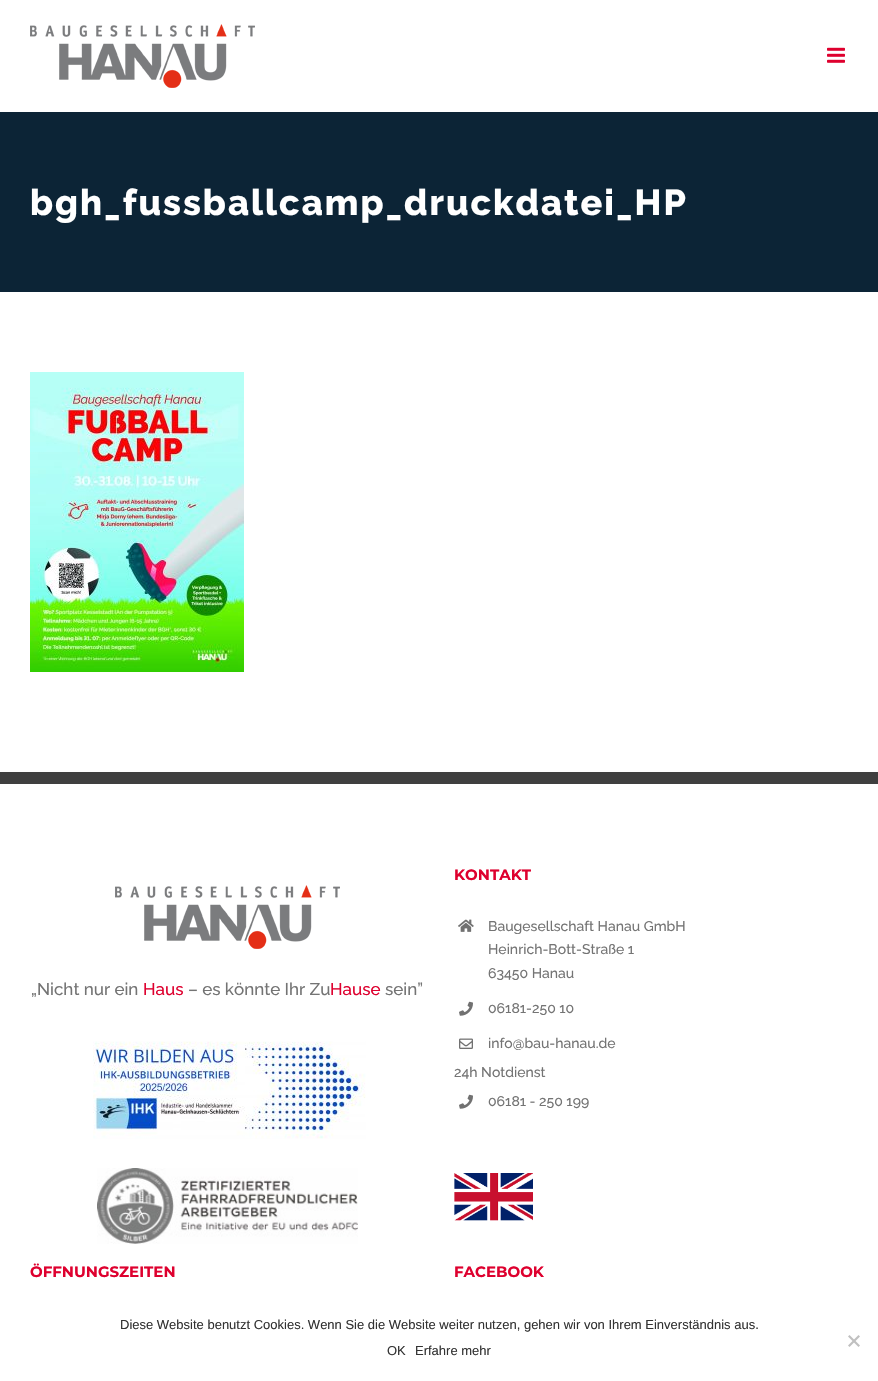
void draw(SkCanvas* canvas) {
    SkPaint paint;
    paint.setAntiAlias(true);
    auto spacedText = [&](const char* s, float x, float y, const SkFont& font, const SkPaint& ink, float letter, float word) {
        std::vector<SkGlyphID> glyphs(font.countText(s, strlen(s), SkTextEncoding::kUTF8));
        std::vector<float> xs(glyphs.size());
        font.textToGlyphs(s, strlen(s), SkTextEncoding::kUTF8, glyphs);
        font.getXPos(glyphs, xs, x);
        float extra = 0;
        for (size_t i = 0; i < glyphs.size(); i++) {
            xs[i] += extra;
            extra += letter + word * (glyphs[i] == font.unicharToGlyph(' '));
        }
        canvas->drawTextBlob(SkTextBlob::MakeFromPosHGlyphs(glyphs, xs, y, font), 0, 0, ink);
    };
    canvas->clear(0xFFFFFFFF);
    canvas->drawImageRect(SkImages::DeferredFromEncodedData(SkData::MakeFromFileName("img1.png")), SkRect::MakeXYWH(30, 24, 225, 64), SkSamplingOptions());
    canvas->drawImageRect(SkImages::DeferredFromEncodedData(SkData::MakeFromFileName("img2.png")), SkRect::MakeXYWH(827, 47, 18, 16), SkSamplingOptions());
    paint.setColor(0xFF0C2436);
    canvas->drawRect(SkRect::MakeXYWH(0, 112, 878, 180), paint);
    SkFont font1(fontMgr->matchFamilyStyle("Raleway", SkFontStyle(800, SkFontStyle::kNormal_Width, SkFontStyle::kUpright_Slant)), 36);
    font1.setSubpixel(true);
    paint.setColor(0xFFFFFFFF);
    spacedText("bgh_fussballcamp_druckdatei_HP", 30, 215, font1, paint, 2, 0);
    canvas->drawImageRect(SkImages::DeferredFromEncodedData(SkData::MakeFromFileName("img3.png")), SkRect::MakeXYWH(30, 372, 214, 300), SkSamplingOptions());
    paint.setColor(0xFF3F3F3F);
    canvas->drawRect(SkRect::MakeXYWH(0, 772, 878, 12), paint);
    canvas->drawImageRect(SkImages::DeferredFromEncodedData(SkData::MakeFromFileName("img1.png")), SkRect::MakeXYWH(115, 885, 225, 64), SkSamplingOptions());
    SkFont font2(fontMgr->matchFamilyStyle("Raleway", SkFontStyle(500, SkFontStyle::kNormal_Width, SkFontStyle::kUpright_Slant)), 17);
    font2.setSubpixel(true);
    paint.setColor(0xFF747474);
    canvas->drawString("„Nicht nur ein", 31, 995, font2, paint);
    paint.setColor(0xFFDE002E);
    canvas->drawString("Haus", 143, 995, font2, paint);
    paint.setColor(0xFF747474);
    canvas->drawString("– es könnte Ihr Zu", 188, 995, font2, paint);
    paint.setColor(0xFFDE002E);
    canvas->drawString("Hause", 330, 995, font2, paint);
    paint.setColor(0xFF747474);
    canvas->drawString("sein”", 385, 995, font2, paint);
    canvas->drawImageRect(SkImages::DeferredFromEncodedData(SkData::MakeFromFileName("img4.png")), SkRect::MakeXYWH(93, 1041, 273, 98), SkSamplingOptions());
    canvas->drawImageRect(SkImages::DeferredFromEncodedData(SkData::MakeFromFileName("img5.png")), SkRect::MakeXYWH(97, 1168, 261, 76), SkSamplingOptions());
    SkFont font3(fontMgr->matchFamilyStyle("Montserrat", SkFontStyle::Bold()), 15);
    font3.setSubpixel(true);
    paint.setColor(0xFFDE002E);
    canvas->drawString("KONTAKT", 454, 880, font3, paint);
    canvas->drawImageRect(SkImages::DeferredFromEncodedData(SkData::MakeFromFileName("img6.png")), SkRect::MakeXYWH(458, 919, 16, 13), SkSamplingOptions());
    SkFont font4(fontMgr->matchFamilyStyle("Raleway", SkFontStyle(500, SkFontStyle::kNormal_Width, SkFontStyle::kUpright_Slant)), 14);
    font4.setSubpixel(true);
    paint.setColor(0xFF747474);
    canvas->drawString("Baugesellschaft Hanau GmbH", 488, 931, font4, paint);
    canvas->drawString("Heinrich-Bott-Straße 1", 488, 954, font4, paint);
    canvas->drawString("63450 Hanau", 488, 978, font4, paint);
    canvas->drawImageRect(SkImages::DeferredFromEncodedData(SkData::MakeFromFileName("img7.png")), SkRect::MakeXYWH(459, 1001, 14, 15), SkSamplingOptions());
    canvas->drawString("06181-250 10", 488, 1013, font4, paint);
    canvas->drawImageRect(SkImages::DeferredFromEncodedData(SkData::MakeFromFileName("img8.png")), SkRect::MakeXYWH(459, 1038, 14, 11), SkSamplingOptions());
    canvas->drawString("info@bau-hanau.de", 488, 1048, font4, paint);
    canvas->drawString("24h Notdienst", 454, 1077, font4, paint);
    canvas->drawImageRect(SkImages::DeferredFromEncodedData(SkData::MakeFromFileName("img7.png")), SkRect::MakeXYWH(459, 1094, 14, 15), SkSamplingOptions());
    canvas->drawString("06181 - 250 199", 488, 1106, font4, paint);
    canvas->drawImageRect(SkImages::DeferredFromEncodedData(SkData::MakeFromFileName("img9.png")), SkRect::MakeXYWH(454, 1173, 79, 48), SkSamplingOptions());
    paint.setColor(0xFFDE002E);
    canvas->drawString("ÖFFNUNGSZEITEN", 30, 1277, font3, paint);
    canvas->drawString("FACEBOOK", 454, 1277, font3, paint);
    SkFont font5(fontMgr->matchFamilyStyle("Liberation Sans", SkFontStyle::Normal()), 13);
    font5.setSubpixel(true);
    paint.setColor(0xFF333333);
    canvas->drawString("Diese Website benutzt Cookies. Wenn Sie die Website weiter nutzen, gehen wir von Ihrem Einverständnis aus.", 120, 1329, font5, paint);
    paint.setColor(0xFFC0C0C0);
    canvas->drawPath(SkPathBuilder().moveTo(858.5f, 1335).lineTo(860, 1336.5f).lineTo(849.5f, 1347).lineTo(848, 1345.5f).close().detach(), paint);
    canvas->drawPath(SkPathBuilder().moveTo(848, 1336.5f).lineTo(849.5f, 1335).lineTo(860, 1345.5f).lineTo(858.5f, 1347).close().detach(), paint);
    paint.setColor(0xFF333333);
    canvas->drawString("OK", 387, 1355, font5, paint);
    canvas->drawString("Erfahre mehr", 415, 1355, font5, paint);
}
